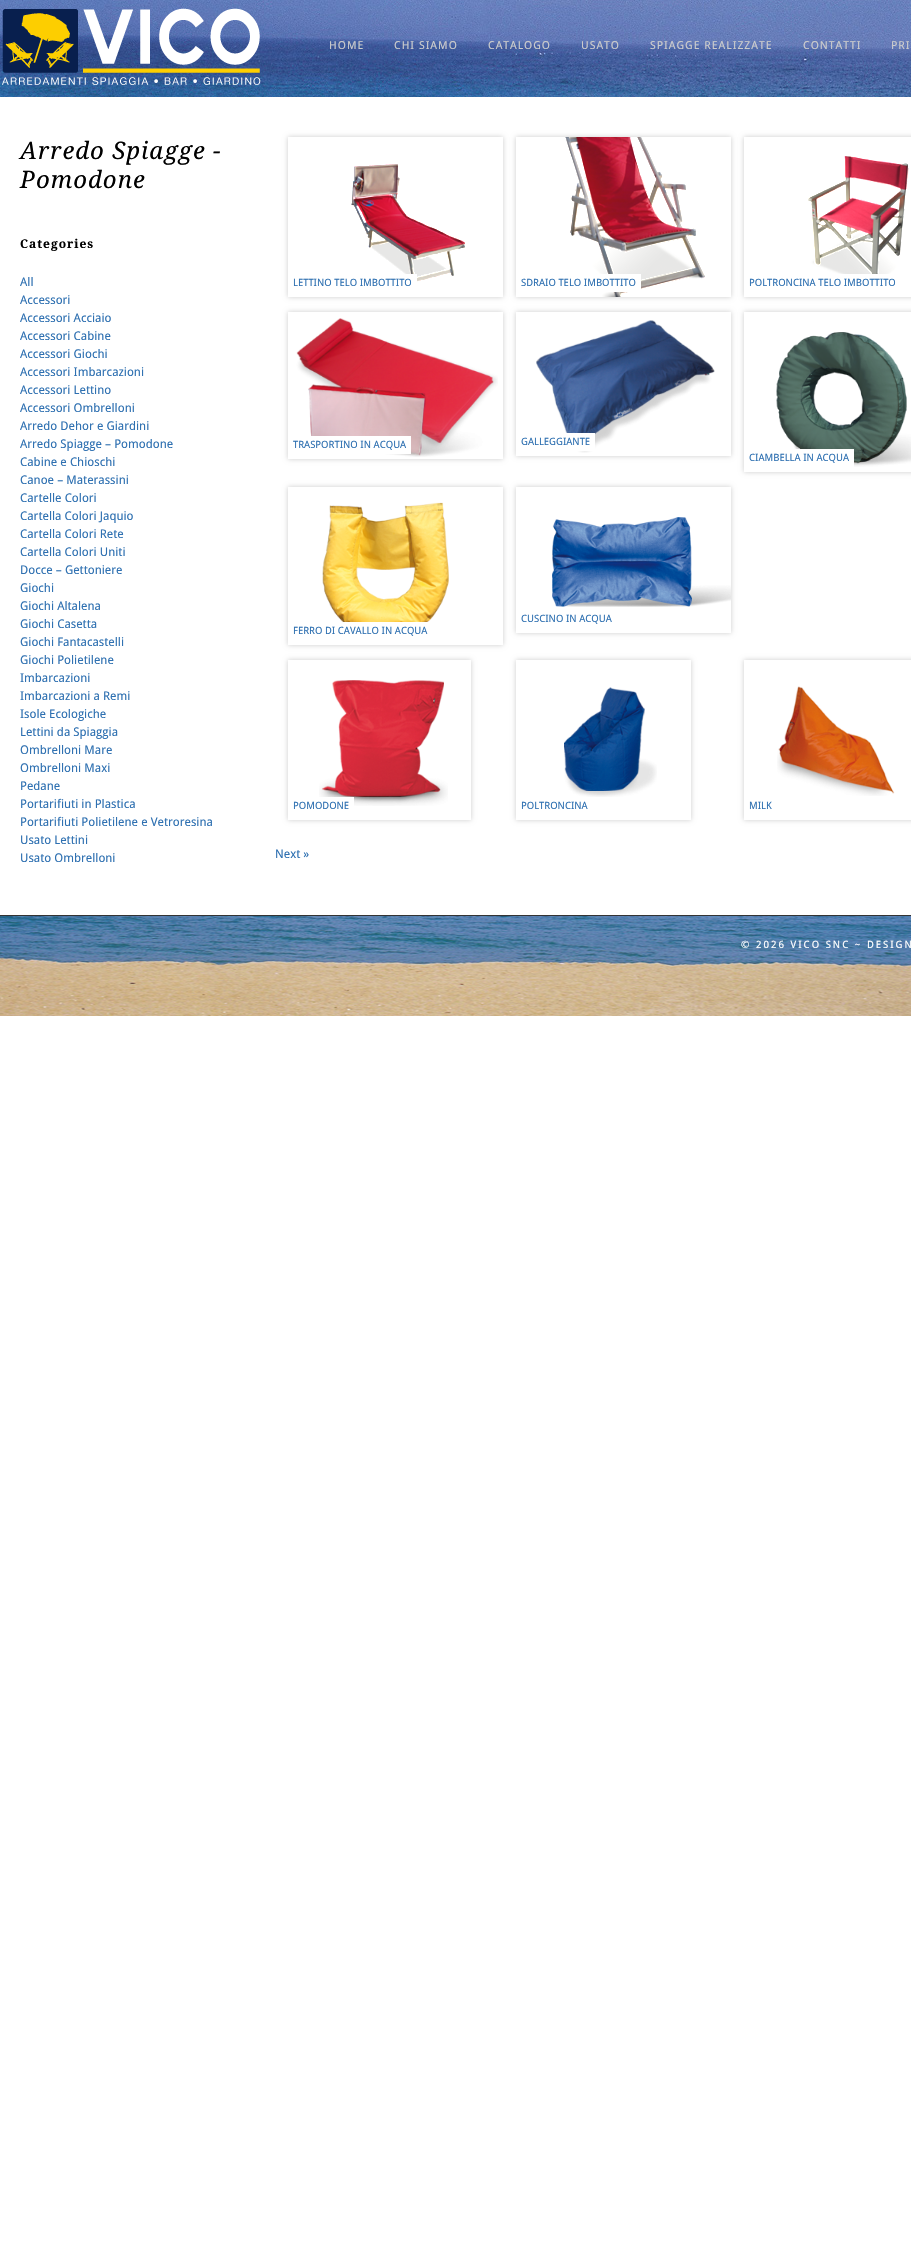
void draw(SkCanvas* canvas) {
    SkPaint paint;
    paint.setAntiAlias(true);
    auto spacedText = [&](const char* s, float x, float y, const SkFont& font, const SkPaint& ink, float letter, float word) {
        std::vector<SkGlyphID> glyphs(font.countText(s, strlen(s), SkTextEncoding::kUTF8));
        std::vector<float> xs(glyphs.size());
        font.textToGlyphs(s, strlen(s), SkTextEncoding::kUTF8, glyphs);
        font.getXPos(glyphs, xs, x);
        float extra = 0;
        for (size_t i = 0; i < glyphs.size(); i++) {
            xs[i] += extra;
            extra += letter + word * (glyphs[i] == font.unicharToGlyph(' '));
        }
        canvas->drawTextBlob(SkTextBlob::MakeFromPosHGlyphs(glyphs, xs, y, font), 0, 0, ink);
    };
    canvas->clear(0xFFFFFFFF);
    canvas->drawImageRect(SkImages::DeferredFromEncodedData(SkData::MakeFromFileName("img1.png")), SkRect::MakeXYWH(0, 0, 911, 97), SkSamplingOptions());
    canvas->drawImageRect(SkImages::DeferredFromEncodedData(SkData::MakeFromFileName("img2.png")), SkRect::MakeXYWH(2, 8, 259, 77), SkSamplingOptions());
    SkFont font1(fontMgr->matchFamilyStyle("Droid Sans", SkFontStyle::Normal()), 11);
    font1.setSubpixel(true);
    paint.setColor(0xFFCCCCCC);
    spacedText("HOME", 329, 49, font1, paint, 1, 0);
    spacedText("CHI SIAMO", 394, 49, font1, paint, 1, 0);
    spacedText("CATALOGO", 488, 49, font1, paint, 1, 0);
    spacedText("USATO", 581, 49, font1, paint, 1, 0);
    spacedText("SPIAGGE REALIZZATE", 650, 49, font1, paint, 1, 0);
    spacedText("CONTATTI", 803, 49, font1, paint, 1, 0);
    spacedText("PRI", 891, 49, font1, paint, 1, 0);
    SkFont font2(fontMgr->matchFamilyStyle("Droid Serif", SkFontStyle::Italic()), 24);
    font2.setSubpixel(true);
    paint.setColor(0xFF000000);
    spacedText("Arredo Spiagge -", 20, 159, font2, paint, 1, 0);
    spacedText("Pomodone", 20, 188, font2, paint, 1, 0);
    SkFont font3(fontMgr->matchFamilyStyle("Droid Serif", SkFontStyle::Bold()), 12);
    font3.setSubpixel(true);
    spacedText("Categories", 20, 248, font3, paint, 1, 0);
    SkFont font4(fontMgr->matchFamilyStyle("Droid Sans", SkFontStyle::Normal()), 12);
    font4.setSubpixel(true);
    paint.setColor(0xFF2E70B1);
    canvas->drawString("All", 20, 286, font4, paint);
    canvas->drawString("Accessori", 20, 304, font4, paint);
    canvas->drawString("Accessori Acciaio", 20, 322, font4, paint);
    canvas->drawString("Accessori Cabine", 20, 340, font4, paint);
    canvas->drawString("Accessori Giochi", 20, 358, font4, paint);
    canvas->drawString("Accessori Imbarcazioni", 20, 376, font4, paint);
    canvas->drawString("Accessori Lettino", 20, 394, font4, paint);
    canvas->drawString("Accessori Ombrelloni", 20, 412, font4, paint);
    canvas->drawString("Arredo Dehor e Giardini", 20, 430, font4, paint);
    canvas->drawString("Arredo Spiagge – Pomodone", 20, 448, font4, paint);
    canvas->drawString("Cabine e Chioschi", 20, 466, font4, paint);
    canvas->drawString("Canoe – Materassini", 20, 484, font4, paint);
    canvas->drawString("Cartelle Colori", 20, 502, font4, paint);
    canvas->drawString("Cartella Colori Jaquio", 20, 520, font4, paint);
    canvas->drawString("Cartella Colori Rete", 20, 538, font4, paint);
    canvas->drawString("Cartella Colori Uniti", 20, 556, font4, paint);
    canvas->drawString("Docce – Gettoniere", 20, 574, font4, paint);
    canvas->drawString("Giochi", 20, 592, font4, paint);
    canvas->drawString("Giochi Altalena", 20, 610, font4, paint);
    canvas->drawString("Giochi Casetta", 20, 628, font4, paint);
    canvas->drawString("Giochi Fantacastelli", 20, 646, font4, paint);
    canvas->drawString("Giochi Polietilene", 20, 664, font4, paint);
    canvas->drawString("Imbarcazioni", 20, 682, font4, paint);
    canvas->drawString("Imbarcazioni a Remi", 20, 700, font4, paint);
    canvas->drawString("Isole Ecologiche", 20, 718, font4, paint);
    canvas->drawString("Lettini da Spiaggia", 20, 736, font4, paint);
    canvas->drawString("Ombrelloni Mare", 20, 754, font4, paint);
    canvas->drawString("Ombrelloni Maxi", 20, 772, font4, paint);
    canvas->drawString("Pedane", 20, 790, font4, paint);
    canvas->drawString("Portarifiuti in Plastica", 20, 808, font4, paint);
    canvas->drawString("Portarifiuti Polietilene e Vetroresina", 20, 826, font4, paint);
    canvas->drawString("Usato Lettini", 20, 844, font4, paint);
    canvas->drawString("Usato Ombrelloni", 20, 862, font4, paint);
    canvas->save();
    canvas->clipPath(SkPathBuilder(SkPathFillType::kEvenOdd).moveTo(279, 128).lineTo(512, 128).lineTo(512, 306).lineTo(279, 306).close().moveTo(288, 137).lineTo(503, 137).lineTo(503, 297).lineTo(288, 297).close().detach(), true);
    paint.setColor(0xFFCCCCCC);
    paint.setMaskFilter(SkMaskFilter::MakeBlur(kNormal_SkBlurStyle, 2.5f));
    canvas->drawRect(SkRect::MakeXYWH(288, 137, 215, 160), paint);
    paint.setMaskFilter(nullptr);
    canvas->restore();
    canvas->drawImageRect(SkImages::DeferredFromEncodedData(SkData::MakeFromFileName("img3.png")), SkRect::MakeXYWH(351, 164, 114, 119), SkSamplingOptions());
    paint.setColor(0xFFFFFFFF);
    canvas->drawRect(SkRect::MakeXYWH(406, 274, 11, 9), paint);
    SkFont font5(fontMgr->matchFamilyStyle("Droid Sans", SkFontStyle::Normal()), 10);
    font5.setSubpixel(true);
    paint.setColor(0xFF2E70B1);
    canvas->drawString("LETTINO TELO IMBOTTITO", 293, 286, font5, paint);
    canvas->save();
    canvas->clipPath(SkPathBuilder(SkPathFillType::kEvenOdd).moveTo(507, 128).lineTo(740, 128).lineTo(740, 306).lineTo(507, 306).close().moveTo(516, 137).lineTo(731, 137).lineTo(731, 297).lineTo(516, 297).close().detach(), true);
    paint.setColor(0xFFCCCCCC);
    paint.setMaskFilter(SkMaskFilter::MakeBlur(kNormal_SkBlurStyle, 2.5f));
    canvas->drawRect(SkRect::MakeXYWH(516, 137, 215, 160), paint);
    paint.setMaskFilter(nullptr);
    canvas->restore();
    canvas->drawImageRect(SkImages::DeferredFromEncodedData(SkData::MakeFromFileName("img4.png")), SkRect::MakeXYWH(565, 137, 140, 160), SkSamplingOptions());
    paint.setColor(0xFFFFFFFF);
    canvas->drawRect(SkRect::MakeXYWH(600, 274, 41, 18), paint);
    paint.setColor(0xFF2E70B1);
    canvas->drawString("SDRAIO TELO IMBOTTITO", 521, 286, font5, paint);
    canvas->save();
    canvas->clipPath(SkPathBuilder(SkPathFillType::kEvenOdd).moveTo(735, 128).lineTo(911, 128).lineTo(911, 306).lineTo(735, 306).close().moveTo(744, 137).lineTo(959, 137).lineTo(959, 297).lineTo(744, 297).close().detach(), true);
    paint.setColor(0xFFCCCCCC);
    paint.setMaskFilter(SkMaskFilter::MakeBlur(kNormal_SkBlurStyle, 2.5f));
    canvas->drawRect(SkRect::MakeXYWH(744, 137, 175, 160), paint);
    paint.setMaskFilter(nullptr);
    canvas->restore();
    canvas->drawImageRect(SkImages::DeferredFromEncodedData(SkData::MakeFromFileName("img5.png")), SkRect::MakeXYWH(808, 156, 101, 118), SkSamplingOptions());
    paint.setColor(0xFF2E70B1);
    canvas->drawString("POLTRONCINA TELO IMBOTTITO", 749, 286, font5, paint);
    canvas->save();
    canvas->clipPath(SkPathBuilder(SkPathFillType::kEvenOdd).moveTo(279, 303).lineTo(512, 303).lineTo(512, 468).lineTo(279, 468).close().moveTo(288, 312).lineTo(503, 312).lineTo(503, 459).lineTo(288, 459).close().detach(), true);
    paint.setColor(0xFFCCCCCC);
    paint.setMaskFilter(SkMaskFilter::MakeBlur(kNormal_SkBlurStyle, 2.5f));
    canvas->drawRect(SkRect::MakeXYWH(288, 312, 215, 147), paint);
    paint.setMaskFilter(nullptr);
    canvas->restore();
    canvas->drawImageRect(SkImages::DeferredFromEncodedData(SkData::MakeFromFileName("img6.png")), SkRect::MakeXYWH(296, 318, 202, 139), SkSamplingOptions());
    paint.setColor(0xFFFFFFFF);
    canvas->drawRect(SkRect::MakeXYWH(311, 436, 100, 18), paint);
    paint.setColor(0xFF2E70B1);
    canvas->drawString("TRASPORTINO IN ACQUA", 293, 448, font5, paint);
    canvas->save();
    canvas->clipPath(SkPathBuilder(SkPathFillType::kEvenOdd).moveTo(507, 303).lineTo(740, 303).lineTo(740, 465).lineTo(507, 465).close().moveTo(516, 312).lineTo(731, 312).lineTo(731, 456).lineTo(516, 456).close().detach(), true);
    paint.setColor(0xFFCCCCCC);
    paint.setMaskFilter(SkMaskFilter::MakeBlur(kNormal_SkBlurStyle, 2.5f));
    canvas->drawRect(SkRect::MakeXYWH(516, 312, 215, 144), paint);
    paint.setMaskFilter(nullptr);
    canvas->restore();
    canvas->drawImageRect(SkImages::DeferredFromEncodedData(SkData::MakeFromFileName("img7.png")), SkRect::MakeXYWH(536, 320, 179, 133), SkSamplingOptions());
    paint.setColor(0xFFFFFFFF);
    canvas->drawRect(SkRect::MakeXYWH(566, 433, 29, 18), paint);
    paint.setColor(0xFF2E70B1);
    canvas->drawString("GALLEGGIANTE", 521, 445, font5, paint);
    canvas->save();
    canvas->clipPath(SkPathBuilder(SkPathFillType::kEvenOdd).moveTo(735, 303).lineTo(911, 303).lineTo(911, 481).lineTo(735, 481).close().moveTo(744, 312).lineTo(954, 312).lineTo(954, 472).lineTo(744, 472).close().detach(), true);
    paint.setColor(0xFFCCCCCC);
    paint.setMaskFilter(SkMaskFilter::MakeBlur(kNormal_SkBlurStyle, 2.5f));
    canvas->drawRect(SkRect::MakeXYWH(744, 312, 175, 160), paint);
    paint.setMaskFilter(nullptr);
    canvas->restore();
    canvas->drawImageRect(SkImages::DeferredFromEncodedData(SkData::MakeFromFileName("img8.png")), SkRect::MakeXYWH(776, 332, 135, 135), SkSamplingOptions());
    paint.setColor(0xFFFFFFFF);
    canvas->drawRect(SkRect::MakeXYWH(795, 449, 59, 18), paint);
    paint.setColor(0xFF2E70B1);
    canvas->drawString("CIAMBELLA IN ACQUA", 749, 461, font5, paint);
    canvas->save();
    canvas->clipPath(SkPathBuilder(SkPathFillType::kEvenOdd).moveTo(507, 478).lineTo(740, 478).lineTo(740, 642).lineTo(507, 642).close().moveTo(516, 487).lineTo(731, 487).lineTo(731, 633).lineTo(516, 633).close().detach(), true);
    paint.setColor(0xFFCCCCCC);
    paint.setMaskFilter(SkMaskFilter::MakeBlur(kNormal_SkBlurStyle, 2.5f));
    canvas->drawRect(SkRect::MakeXYWH(516, 487, 215, 146), paint);
    paint.setMaskFilter(nullptr);
    canvas->restore();
    canvas->drawImageRect(SkImages::DeferredFromEncodedData(SkData::MakeFromFileName("img9.png")), SkRect::MakeXYWH(552, 517, 179, 90), SkSamplingOptions());
    paint.setColor(0xFF2E70B1);
    canvas->drawString("CUSCINO IN ACQUA", 521, 622, font5, paint);
    canvas->save();
    canvas->clipPath(SkPathBuilder(SkPathFillType::kEvenOdd).moveTo(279, 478).lineTo(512, 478).lineTo(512, 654).lineTo(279, 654).close().moveTo(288, 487).lineTo(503, 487).lineTo(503, 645).lineTo(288, 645).close().detach(), true);
    paint.setColor(0xFFCCCCCC);
    paint.setMaskFilter(SkMaskFilter::MakeBlur(kNormal_SkBlurStyle, 2.5f));
    canvas->drawRect(SkRect::MakeXYWH(288, 487, 215, 158), paint);
    paint.setMaskFilter(nullptr);
    canvas->restore();
    canvas->drawImageRect(SkImages::DeferredFromEncodedData(SkData::MakeFromFileName("img10.png")), SkRect::MakeXYWH(322, 502, 127, 120), SkSamplingOptions());
    paint.setColor(0xFF2E70B1);
    canvas->drawString("FERRO DI CAVALLO IN ACQUA", 293, 634, font5, paint);
    canvas->save();
    canvas->clipPath(SkPathBuilder(SkPathFillType::kEvenOdd).moveTo(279, 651).lineTo(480, 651).lineTo(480, 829).lineTo(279, 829).close().moveTo(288, 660).lineTo(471, 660).lineTo(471, 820).lineTo(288, 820).close().detach(), true);
    paint.setColor(0xFFCCCCCC);
    paint.setMaskFilter(SkMaskFilter::MakeBlur(kNormal_SkBlurStyle, 2.5f));
    canvas->drawRect(SkRect::MakeXYWH(288, 660, 183, 160), paint);
    paint.setMaskFilter(nullptr);
    canvas->restore();
    canvas->drawImageRect(SkImages::DeferredFromEncodedData(SkData::MakeFromFileName("img11.png")), SkRect::MakeXYWH(319, 680, 129, 126), SkSamplingOptions());
    paint.setColor(0xFFFFFFFF);
    canvas->drawRect(SkRect::MakeXYWH(319, 797, 35, 9), paint);
    paint.setColor(0xFF2E70B1);
    canvas->drawString("POMODONE", 293, 809, font5, paint);
    canvas->save();
    canvas->clipPath(SkPathBuilder(SkPathFillType::kEvenOdd).moveTo(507, 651).lineTo(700, 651).lineTo(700, 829).lineTo(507, 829).close().moveTo(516, 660).lineTo(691, 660).lineTo(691, 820).lineTo(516, 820).close().detach(), true);
    paint.setColor(0xFFCCCCCC);
    paint.setMaskFilter(SkMaskFilter::MakeBlur(kNormal_SkBlurStyle, 2.5f));
    canvas->drawRect(SkRect::MakeXYWH(516, 660, 175, 160), paint);
    paint.setMaskFilter(nullptr);
    canvas->restore();
    canvas->drawImageRect(SkImages::DeferredFromEncodedData(SkData::MakeFromFileName("img12.png")), SkRect::MakeXYWH(564, 687, 93, 110), SkSamplingOptions());
    paint.setColor(0xFF2E70B1);
    canvas->drawString("POLTRONCINA", 521, 809, font5, paint);
    canvas->save();
    canvas->clipPath(SkPathBuilder(SkPathFillType::kEvenOdd).moveTo(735, 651).lineTo(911, 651).lineTo(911, 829).lineTo(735, 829).close().moveTo(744, 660).lineTo(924, 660).lineTo(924, 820).lineTo(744, 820).close().detach(), true);
    paint.setColor(0xFFCCCCCC);
    paint.setMaskFilter(SkMaskFilter::MakeBlur(kNormal_SkBlurStyle, 2.5f));
    canvas->drawRect(SkRect::MakeXYWH(744, 660, 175, 160), paint);
    paint.setMaskFilter(nullptr);
    canvas->restore();
    canvas->drawImageRect(SkImages::DeferredFromEncodedData(SkData::MakeFromFileName("img13.png")), SkRect::MakeXYWH(777, 686, 118, 110), SkSamplingOptions());
    paint.setColor(0xFF2E70B1);
    canvas->drawString("MILK", 749, 809, font5, paint);
    canvas->drawString("Next »", 275, 858, font4, paint);
    canvas->drawImageRect(SkImages::DeferredFromEncodedData(SkData::MakeFromFileName("img14.png")), SkRect::MakeXYWH(0, 916, 911, 100), SkSamplingOptions());
    paint.setColor(0xFF333333);
    canvas->drawRect(SkRect::MakeXYWH(0, 915, 911, 1), paint);
    paint.setColor(0xFFFFFFFF);
    spacedText("© 2026 VICO SNC ~ DESIGN", 741, 948, font5, paint, 2, 0);
}
